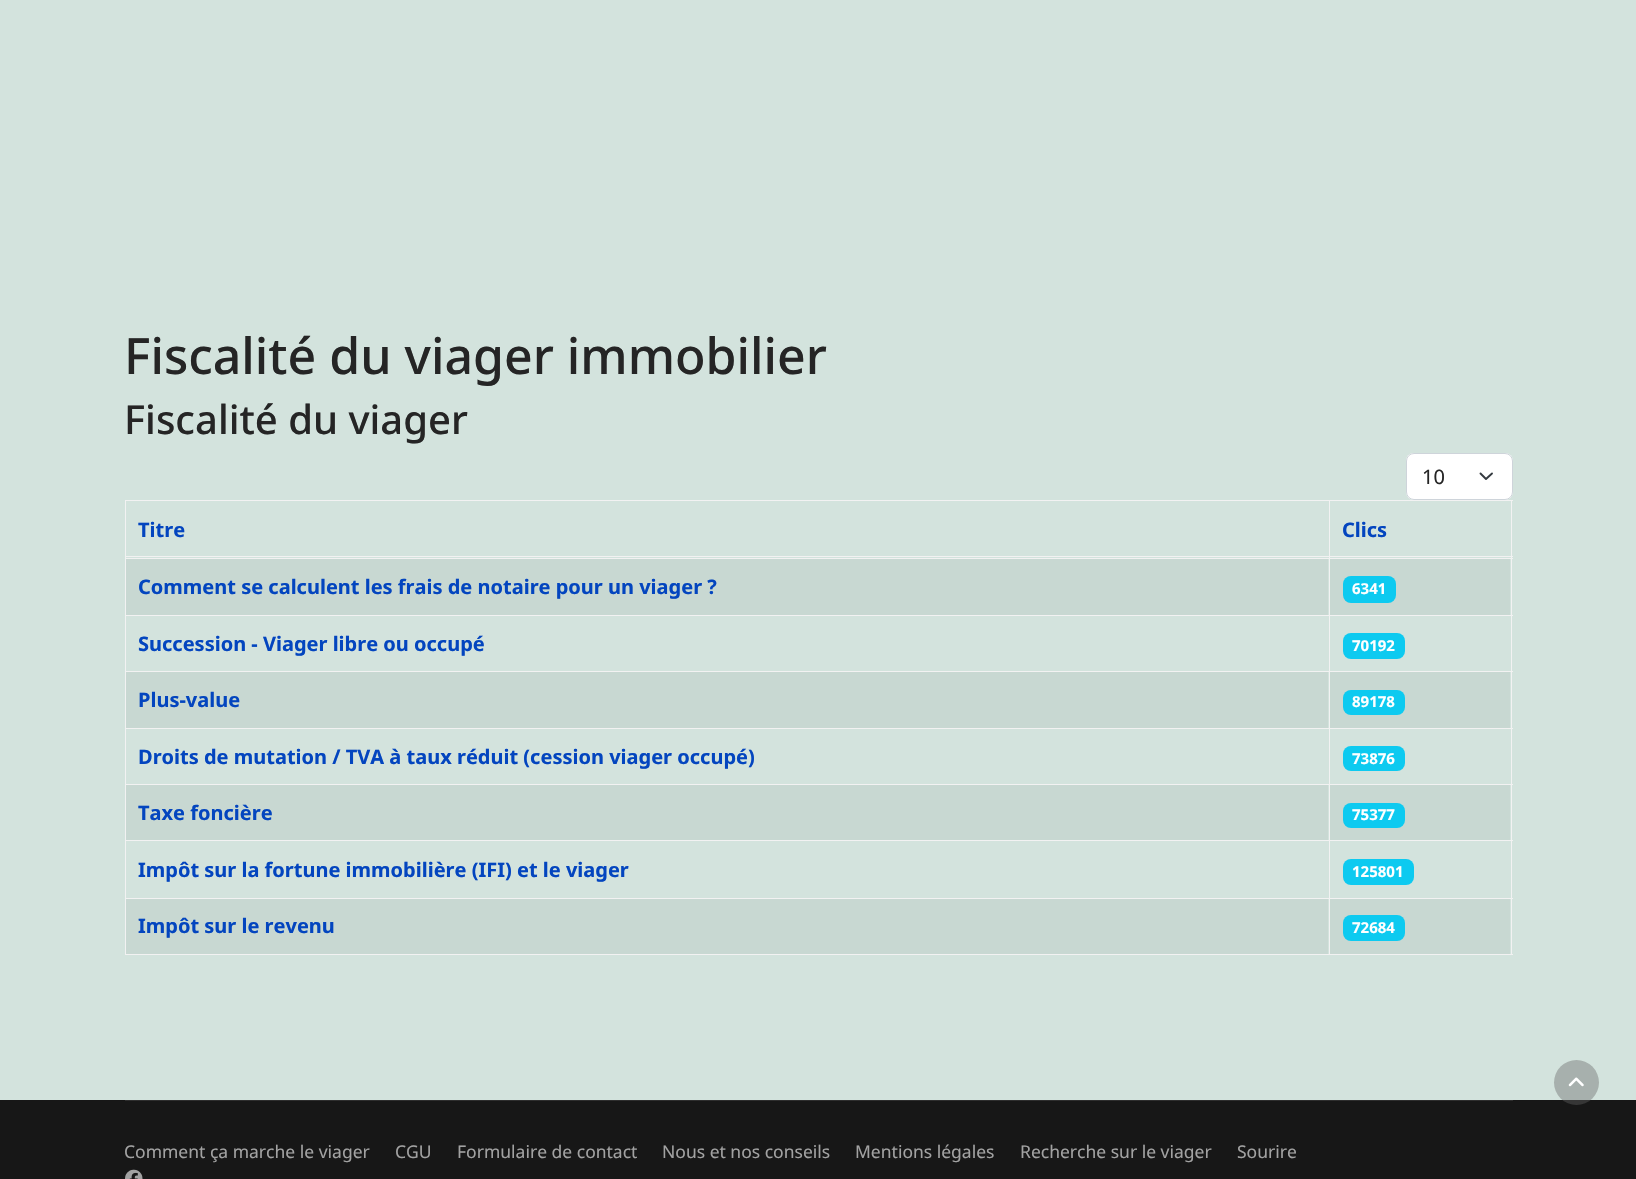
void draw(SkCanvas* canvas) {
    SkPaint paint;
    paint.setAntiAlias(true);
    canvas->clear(0xFFD3E3DD);
    SkFont font1(fontMgr->matchFamilyStyle("Noto Sans", SkFontStyle(500, SkFontStyle::kNormal_Width, SkFontStyle::kUpright_Slant)), 50);
    font1.setSubpixel(true);
    paint.setColor(0xFF252525);
    canvas->drawString("Fiscalité du viager immobilier", 124, 374, font1, paint);
    SkFont font2(fontMgr->matchFamilyStyle("Noto Sans", SkFontStyle(500, SkFontStyle::kNormal_Width, SkFontStyle::kUpright_Slant)), 40);
    font2.setSubpixel(true);
    canvas->drawString("Fiscalité du viager", 124, 434, font2, paint);
    paint.setColor(0xFFFFFFFF);
    canvas->drawRoundRect(SkRect::MakeXYWH(1406, 453, 107, 47), 8, 8, paint);
    paint.setStyle(SkPaint::kStroke_Style);
    paint.setStrokeWidth(1.9f);
    paint.setStrokeCap(SkPaint::kRound_Cap);
    paint.setStrokeJoin(SkPaint::kRound_Join);
    paint.setColor(0xFF343A40);
    canvas->drawPath(SkPathBuilder().moveTo(1480.5f, 473.5f).lineTo(1486, 479).lineTo(1492, 473.5f).detach(), paint);
    paint.setStrokeWidth(1);
    paint.setStrokeCap(SkPaint::kButt_Cap);
    paint.setStrokeJoin(SkPaint::kMiter_Join);
    paint.setColor(0xFFCED4DA);
    canvas->drawRoundRect(SkRect::MakeXYWH(1406.5f, 453.5f, 106, 46), 7.5f, 7.5f, paint);
    SkFont font3(fontMgr->matchFamilyStyle("Noto Sans", SkFontStyle::Normal()), 20);
    font3.setSubpixel(true);
    paint.setStyle(SkPaint::kFill_Style);
    paint.setColor(0xFF252525);
    canvas->drawString("10", 1422, 484, font3, paint);
    paint.setColor(0xFFF2F2F2);
    canvas->drawRect(SkRect::MakeXYWH(125, 500, 1388, 1), paint);
    canvas->drawRect(SkRect::MakeXYWH(1511, 500, 1, 58), paint);
    canvas->drawRect(SkRect::MakeXYWH(125, 556, 1388, 1), paint);
    canvas->drawRect(SkRect::MakeXYWH(125, 500, 1, 58), paint);
    SkFont font4(fontMgr->matchFamilyStyle("Noto Sans", SkFontStyle::Bold()), 20);
    font4.setSubpixel(true);
    paint.setColor(0xFF0345BF);
    canvas->drawString("Titre", 138, 537, font4, paint);
    canvas->drawString("Clics", 1342, 537, font4, paint);
    paint.setColor(0xFFF2F2F2);
    canvas->drawRect(SkRect::MakeXYWH(125, 558, 1388, 1), paint);
    canvas->drawRect(SkRect::MakeXYWH(125, 615, 1388, 1), paint);
    canvas->drawRect(SkRect::MakeXYWH(125, 671, 1388, 1), paint);
    canvas->drawRect(SkRect::MakeXYWH(125, 728, 1388, 1), paint);
    canvas->drawRect(SkRect::MakeXYWH(125, 784, 1388, 1), paint);
    canvas->drawRect(SkRect::MakeXYWH(125, 840, 1388, 1), paint);
    canvas->drawRect(SkRect::MakeXYWH(125, 898, 1388, 1), paint);
    canvas->drawRect(SkRect::MakeXYWH(1511, 898, 1, 57), paint);
    canvas->drawRect(SkRect::MakeXYWH(1511, 840, 1, 59), paint);
    canvas->drawRect(SkRect::MakeXYWH(1511, 784, 1, 57), paint);
    canvas->drawRect(SkRect::MakeXYWH(1511, 728, 1, 57), paint);
    canvas->drawRect(SkRect::MakeXYWH(1511, 671, 1, 58), paint);
    canvas->drawRect(SkRect::MakeXYWH(1511, 615, 1, 58), paint);
    canvas->drawRect(SkRect::MakeXYWH(1511, 558, 1, 58), paint);
    canvas->drawRect(SkRect::MakeXYWH(125, 954, 1388, 1), paint);
    canvas->drawRect(SkRect::MakeXYWH(125, 898, 1, 57), paint);
    canvas->drawRect(SkRect::MakeXYWH(125, 840, 1, 59), paint);
    canvas->drawRect(SkRect::MakeXYWH(125, 784, 1, 57), paint);
    canvas->drawRect(SkRect::MakeXYWH(125, 728, 1, 57), paint);
    canvas->drawRect(SkRect::MakeXYWH(125, 671, 1, 58), paint);
    canvas->drawRect(SkRect::MakeXYWH(125, 615, 1, 58), paint);
    canvas->drawRect(SkRect::MakeXYWH(125, 558, 1, 58), paint);
    paint.setColor(0xFFC8D8D2);
    canvas->drawRect(SkRect::MakeXYWH(126, 559, 1202, 56), paint);
    paint.setColor(0xFF0345BF);
    canvas->drawString("Comment se calculent les frais de notaire pour un viager ?", 138, 594, font4, paint);
    paint.setColor(0xFFC8D8D2);
    canvas->drawRect(SkRect::MakeXYWH(1330, 559, 180, 56), paint);
    paint.setColor(0xFF0DCAF0);
    canvas->drawRoundRect(SkRect::MakeXYWH(1343, 576, 53, 27), 8, 8, paint);
    SkFont font5(fontMgr->matchFamilyStyle("Noto Sans", SkFontStyle::Bold()), 15);
    font5.setSubpixel(true);
    paint.setColor(0xFFFFFFFF);
    canvas->drawString("6341", 1352, 594, font5, paint);
    paint.setColor(0xFF0345BF);
    canvas->drawString("Succession - Viager libre ou occupé", 138, 651, font4, paint);
    paint.setColor(0xFF0DCAF0);
    canvas->drawRoundRect(SkRect::MakeXYWH(1343, 633, 62, 26), 8, 8, paint);
    paint.setColor(0xFFFFFFFF);
    canvas->drawString("70192", 1352, 651, font5, paint);
    paint.setColor(0xFFC8D8D2);
    canvas->drawRect(SkRect::MakeXYWH(126, 672, 1202, 56), paint);
    paint.setColor(0xFF0345BF);
    canvas->drawString("Plus-value", 138, 707, font4, paint);
    paint.setColor(0xFFC8D8D2);
    canvas->drawRect(SkRect::MakeXYWH(1330, 672, 180, 56), paint);
    paint.setColor(0xFF0DCAF0);
    canvas->drawRoundRect(SkRect::MakeXYWH(1343, 690, 62, 25), 8, 8, paint);
    paint.setColor(0xFFFFFFFF);
    canvas->drawString("89178", 1352, 707, font5, paint);
    paint.setColor(0xFF0345BF);
    canvas->drawString("Droits de mutation / TVA à taux réduit (cession viager occupé)", 138, 764, font4, paint);
    paint.setColor(0xFF0DCAF0);
    canvas->drawRoundRect(SkRect::MakeXYWH(1343, 746, 62, 25), 8, 8, paint);
    paint.setColor(0xFFFFFFFF);
    canvas->drawString("73876", 1352, 764, font5, paint);
    paint.setColor(0xFFC8D8D2);
    canvas->drawRect(SkRect::MakeXYWH(126, 785, 1202, 55), paint);
    paint.setColor(0xFF0345BF);
    canvas->drawString("Taxe foncière", 138, 820, font4, paint);
    paint.setColor(0xFFC8D8D2);
    canvas->drawRect(SkRect::MakeXYWH(1330, 785, 180, 55), paint);
    paint.setColor(0xFF0DCAF0);
    canvas->drawRoundRect(SkRect::MakeXYWH(1343, 803, 62, 25), 8, 8, paint);
    paint.setColor(0xFFFFFFFF);
    canvas->drawString("75377", 1352, 820, font5, paint);
    paint.setColor(0xFF0345BF);
    canvas->drawString("Impôt sur la fortune immobilière (IFI) et le viager", 138, 877, font4, paint);
    paint.setColor(0xFF0DCAF0);
    canvas->drawRoundRect(SkRect::MakeXYWH(1343, 859, 71, 26), 8, 8, paint);
    paint.setColor(0xFFFFFFFF);
    canvas->drawString("125801", 1352, 877, font5, paint);
    paint.setColor(0xFFC8D8D2);
    canvas->drawRect(SkRect::MakeXYWH(126, 899, 1202, 55), paint);
    paint.setColor(0xFF0345BF);
    canvas->drawString("Impôt sur le revenu", 138, 933, font4, paint);
    paint.setColor(0xFFC8D8D2);
    canvas->drawRect(SkRect::MakeXYWH(1330, 899, 180, 55), paint);
    paint.setColor(0xFFF2F2F2);
    canvas->drawRect(SkRect::MakeXYWH(1329, 500, 1, 455), paint);
    paint.setColor(0xFF0DCAF0);
    canvas->drawRoundRect(SkRect::MakeXYWH(1343, 915, 62, 26), 8, 8, paint);
    paint.setColor(0xFFFFFFFF);
    canvas->drawString("72684", 1352, 933, font5, paint);
    paint.setColor(0xFF171717);
    canvas->drawRect(SkRect::MakeXYWH(0, 1100, 1636, 79), paint);
    paint.setColor(0xFF2E2E2E);
    canvas->drawRect(SkRect::MakeXYWH(125, 1100, 1388, 1), paint);
    SkFont font6(fontMgr->matchFamilyStyle("Noto Sans", SkFontStyle::Normal()), 17.5f);
    font6.setSubpixel(true);
    paint.setColor(0xFFA2A2A2);
    canvas->drawString("Comment ça marche le viager", 124, 1158, font6, paint);
    canvas->drawString("CGU", 395, 1158, font6, paint);
    canvas->drawString("Formulaire de contact", 457, 1158, font6, paint);
    canvas->drawString("Nous et nos conseils", 662, 1158, font6, paint);
    canvas->drawString("Mentions légales", 855, 1158, font6, paint);
    canvas->drawString("Recherche sur le viager", 1020, 1158, font6, paint);
    canvas->drawString("Sourire", 1237, 1158, font6, paint);
    canvas->drawImageRect(SkImages::DeferredFromEncodedData(SkData::MakeFromFileName("img1.png")), SkRect::MakeXYWH(125, 1169, 18, 10), SkSamplingOptions());
    paint.setColor(0x66646464);
    canvas->drawCircle(1576.5f, 1082.5f, 22.5f, paint);
    canvas->drawImageRect(SkImages::DeferredFromEncodedData(SkData::MakeFromFileName("img2.png")), SkRect::MakeXYWH(1568, 1077, 16, 10), SkSamplingOptions());
}
